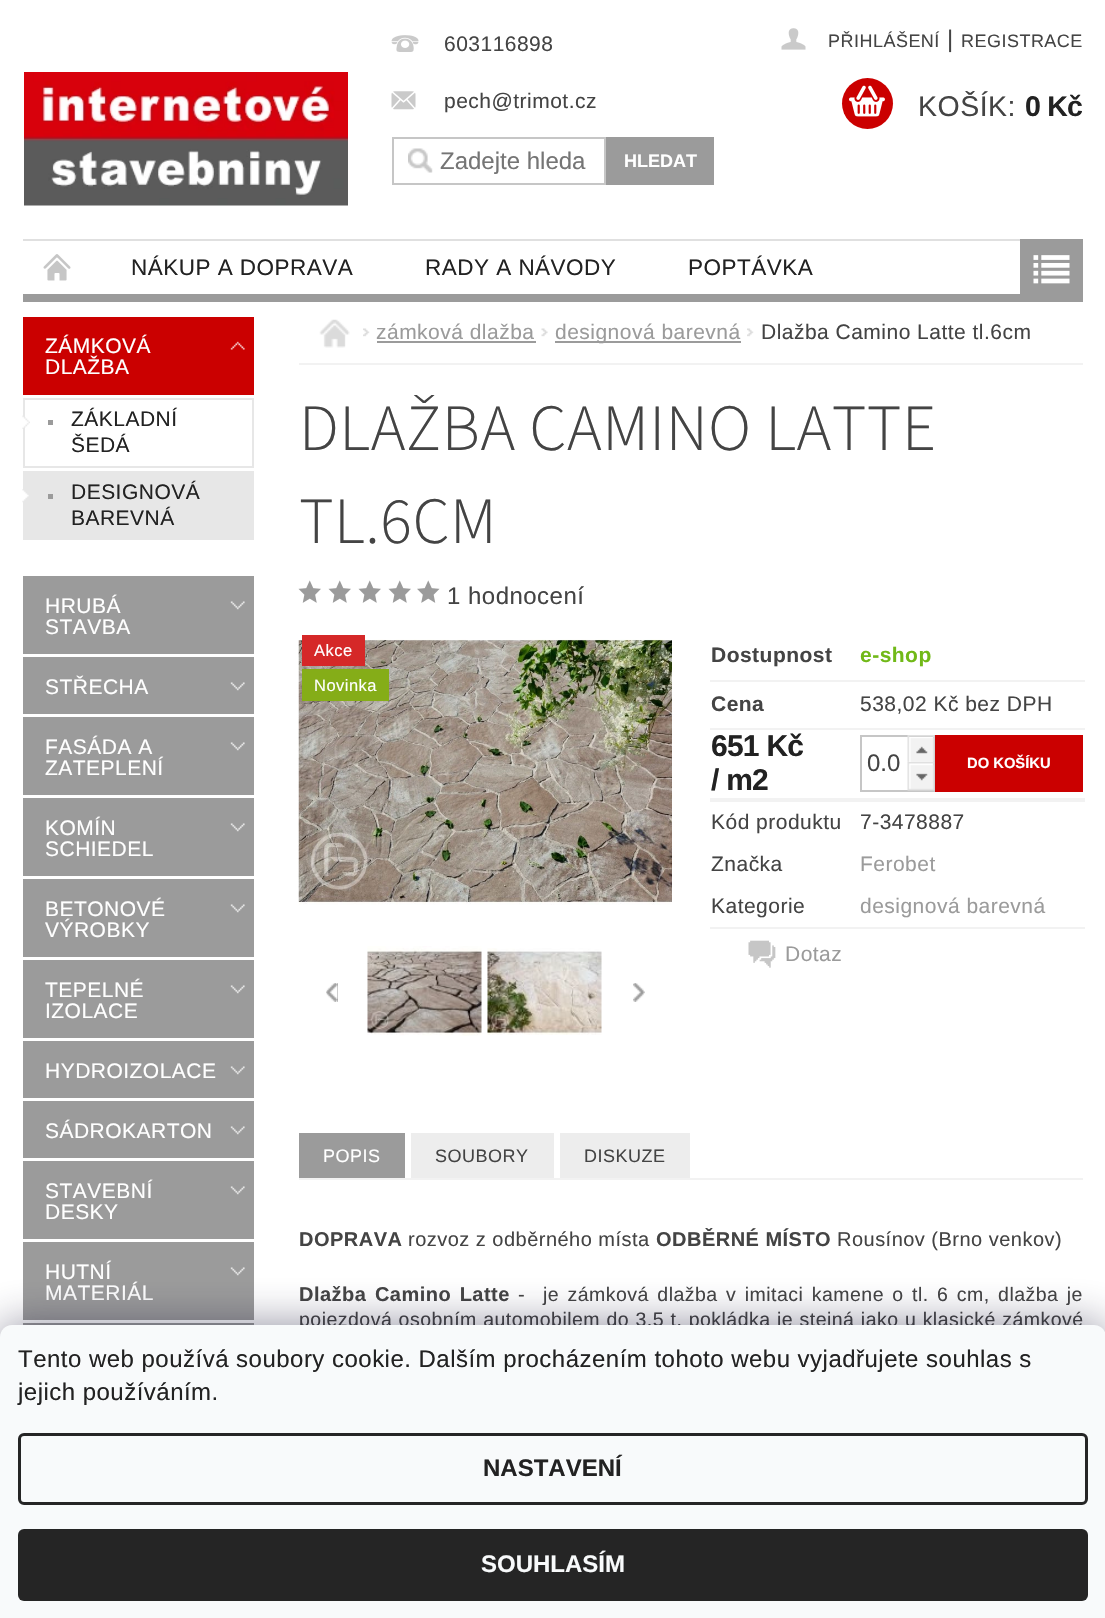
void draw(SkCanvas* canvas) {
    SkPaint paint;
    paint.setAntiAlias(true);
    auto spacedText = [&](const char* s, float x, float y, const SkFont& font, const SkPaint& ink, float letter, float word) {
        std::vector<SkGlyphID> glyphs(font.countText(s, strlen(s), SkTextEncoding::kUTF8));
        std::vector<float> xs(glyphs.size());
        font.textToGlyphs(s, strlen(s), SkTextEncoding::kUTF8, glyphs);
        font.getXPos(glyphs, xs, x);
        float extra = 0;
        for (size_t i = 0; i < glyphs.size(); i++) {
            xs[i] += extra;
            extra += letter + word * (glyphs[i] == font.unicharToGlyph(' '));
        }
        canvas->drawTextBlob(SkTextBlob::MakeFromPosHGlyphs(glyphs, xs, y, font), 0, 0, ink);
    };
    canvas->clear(0xFFFFFFFF);
    paint.setColor(0xFF9B9B9B);
    canvas->drawRect(SkRect::MakeXYWH(23, 294, 997, 8), paint);
    canvas->drawImageRect(SkImages::DeferredFromEncodedData(SkData::MakeFromFileName("img1.png")), SkRect::MakeXYWH(24, 72, 324, 134), SkSamplingOptions());
    canvas->drawImageRect(SkImages::DeferredFromEncodedData(SkData::MakeFromFileName("img2.png")), SkRect::MakeXYWH(391, 35, 28, 17), SkSamplingOptions());
    SkFont font1(fontMgr->matchFamilyStyle("Liberation Sans", SkFontStyle::Normal()), 21);
    font1.setSubpixel(true);
    paint.setColor(0xFF444444);
    spacedText("603116898", 444, 51, font1, paint, 0.48f, 0);
    canvas->drawImageRect(SkImages::DeferredFromEncodedData(SkData::MakeFromFileName("img3.png")), SkRect::MakeXYWH(391, 91, 25, 19), SkSamplingOptions());
    spacedText("pech@trimot.cz", 444, 108, font1, paint, 0.48f, 0);
    canvas->drawImageRect(SkImages::DeferredFromEncodedData(SkData::MakeFromFileName("img4.png")), SkRect::MakeXYWH(408, 148, 25, 25), SkSamplingOptions());
    paint.setStyle(SkPaint::kStroke_Style);
    paint.setStrokeWidth(2);
    paint.setColor(0xFFC6C6C6);
    canvas->drawRect(SkRect::MakeXYWH(393, 138, 212, 46), paint);
    SkFont font2(fontMgr->matchFamilyStyle("Liberation Sans", SkFontStyle::Normal()), 24);
    font2.setSubpixel(true);
    paint.setStyle(SkPaint::kFill_Style);
    paint.setColor(0xFF757575);
    canvas->drawString("Zadejte hleda", 440, 169, font2, paint);
    paint.setColor(0xFF9B9B9B);
    canvas->drawRect(SkRect::MakeXYWH(606, 137, 108, 48), paint);
    SkFont font3(fontMgr->matchFamilyStyle("Liberation Sans", SkFontStyle::Bold()), 18);
    font3.setSubpixel(true);
    paint.setColor(0xFFFFFFFF);
    canvas->drawString("HLEDAT", 624, 167, font3, paint);
    canvas->drawImageRect(SkImages::DeferredFromEncodedData(SkData::MakeFromFileName("img5.png")), SkRect::MakeXYWH(781, 28, 25, 22), SkSamplingOptions());
    SkFont font4(fontMgr->matchFamilyStyle("Liberation Sans", SkFontStyle::Normal()), 18);
    font4.setSubpixel(true);
    paint.setColor(0xFF444444);
    spacedText("PŘIHLÁŠENÍ", 828, 47, font4, paint, 0.48f, 0);
    spacedText("|", 947, 47, font2, paint, 0.48f, 0);
    spacedText("REGISTRACE", 961, 47, font4, paint, 0.48f, 0);
    paint.setColor(0xFFCB0000);
    canvas->drawCircle(867.5f, 103.5f, 25.5f, paint);
    canvas->drawImageRect(SkImages::DeferredFromEncodedData(SkData::MakeFromFileName("img6.png")), SkRect::MakeXYWH(849, 85, 36, 32), SkSamplingOptions());
    SkFont font5(fontMgr->matchFamilyStyle("Liberation Sans", SkFontStyle::Normal()), 28.5f);
    font5.setSubpixel(true);
    paint.setColor(0xFF444444);
    spacedText("KOŠÍK:", 918, 116, font5, paint, 0.48f, 0);
    SkFont font6(fontMgr->matchFamilyStyle("Liberation Sans", SkFontStyle::Bold()), 28.5f);
    font6.setSubpixel(true);
    paint.setColor(0xFF222222);
    spacedText("0 Kč", 1025, 116, font6, paint, -0.75f, 0);
    paint.setColor(0xFFE0E0E0);
    canvas->drawRect(SkRect::MakeXYWH(23, 239, 997, 2), paint);
    canvas->drawImageRect(SkImages::DeferredFromEncodedData(SkData::MakeFromFileName("img7.png")), SkRect::MakeXYWH(43, 254, 28, 27), SkSamplingOptions());
    SkFont font7(fontMgr->matchFamilyStyle("Liberation Sans", SkFontStyle::Normal()), 22.5f);
    font7.setSubpixel(true);
    paint.setColor(0xFF222222);
    spacedText("NÁKUP A DOPRAVA", 131, 275, font7, paint, 0.48f, 0);
    spacedText("RADY A NÁVODY", 425, 275, font7, paint, 0.48f, 0);
    spacedText("POPTÁVKA", 688, 275, font7, paint, 0.48f, 0);
    paint.setColor(0xFF9B9B9B);
    canvas->drawRect(SkRect::MakeXYWH(1020, 239, 63, 63), paint);
    canvas->drawImageRect(SkImages::DeferredFromEncodedData(SkData::MakeFromFileName("img8.png")), SkRect::MakeXYWH(1033, 255, 37, 29), SkSamplingOptions());
    paint.setColor(0xFFCB0000);
    canvas->drawRect(SkRect::MakeXYWH(23, 317, 231, 78), paint);
    canvas->drawImageRect(SkImages::DeferredFromEncodedData(SkData::MakeFromFileName("img9.png")), SkRect::MakeXYWH(230, 341, 15, 9), SkSamplingOptions());
    paint.setColor(0xFFFFFFFF);
    spacedText("ZÁMKOVÁ", 45, 353, font1, paint, 0.48f, 0);
    spacedText("DLAŽBA", 45, 374, font1, paint, 0.48f, 0);
    paint.setStyle(SkPaint::kStroke_Style);
    paint.setColor(0xFFE7E7E7);
    canvas->drawRect(SkRect::MakeXYWH(24, 399, 229, 68), paint);
    canvas->drawImageRect(SkImages::DeferredFromEncodedData(SkData::MakeFromFileName("img10.png")), SkRect::MakeXYWH(22, 415, 8, 14), SkSamplingOptions());
    paint.setStyle(SkPaint::kFill_Style);
    paint.setColor(0xFF9B9B9B);
    canvas->drawRect(SkRect::MakeXYWH(48, 420, 5, 5), paint);
    paint.setColor(0xFF222222);
    spacedText("ZÁKLADNÍ", 71, 426, font1, paint, 0.48f, 0);
    spacedText("ŠEDÁ", 71, 452, font1, paint, 0.48f, 0);
    paint.setStyle(SkPaint::kStroke_Style);
    paint.setColor(0xFFE7E7E7);
    canvas->drawRect(SkRect::MakeXYWH(24, 472, 229, 67), paint);
    paint.setStyle(SkPaint::kFill_Style);
    canvas->drawRect(SkRect::MakeXYWH(25, 473, 227, 65), paint);
    canvas->drawImageRect(SkImages::DeferredFromEncodedData(SkData::MakeFromFileName("img11.png")), SkRect::MakeXYWH(22, 489, 7, 14), SkSamplingOptions());
    paint.setColor(0xFF9B9B9B);
    canvas->drawRect(SkRect::MakeXYWH(48, 494, 5, 5), paint);
    paint.setColor(0xFF222222);
    spacedText("DESIGNOVÁ", 71, 499, font1, paint, 0.48f, 0);
    spacedText("BAREVNÁ", 71, 525, font1, paint, 0.48f, 0);
    paint.setColor(0xFF9B9B9B);
    canvas->drawRect(SkRect::MakeXYWH(23, 576, 231, 78), paint);
    canvas->drawImageRect(SkImages::DeferredFromEncodedData(SkData::MakeFromFileName("img12.png")), SkRect::MakeXYWH(230, 601, 15, 9), SkSamplingOptions());
    paint.setColor(0xFFFFFFFF);
    spacedText("HRUBÁ", 45, 613, font1, paint, 0.48f, 0);
    spacedText("STAVBA", 45, 634, font1, paint, 0.48f, 0);
    paint.setColor(0xFF9B9B9B);
    canvas->drawRect(SkRect::MakeXYWH(23, 657, 231, 57), paint);
    canvas->drawImageRect(SkImages::DeferredFromEncodedData(SkData::MakeFromFileName("img12.png")), SkRect::MakeXYWH(230, 682, 15, 9), SkSamplingOptions());
    paint.setColor(0xFFFFFFFF);
    spacedText("STŘECHA", 45, 694, font1, paint, 0.48f, 0);
    paint.setColor(0xFF9B9B9B);
    canvas->drawRect(SkRect::MakeXYWH(23, 717, 231, 78), paint);
    canvas->drawImageRect(SkImages::DeferredFromEncodedData(SkData::MakeFromFileName("img12.png")), SkRect::MakeXYWH(230, 742, 15, 9), SkSamplingOptions());
    paint.setColor(0xFFFFFFFF);
    spacedText("FASÁDA A", 45, 754, font1, paint, 0.48f, 0);
    spacedText("ZATEPLENÍ", 45, 775, font1, paint, 0.48f, 0);
    paint.setColor(0xFF9B9B9B);
    canvas->drawRect(SkRect::MakeXYWH(23, 798, 231, 78), paint);
    canvas->drawImageRect(SkImages::DeferredFromEncodedData(SkData::MakeFromFileName("img12.png")), SkRect::MakeXYWH(230, 823, 15, 9), SkSamplingOptions());
    paint.setColor(0xFFFFFFFF);
    spacedText("KOMÍN", 45, 835, font1, paint, 0.48f, 0);
    spacedText("SCHIEDEL", 45, 856, font1, paint, 0.48f, 0);
    paint.setColor(0xFF9B9B9B);
    canvas->drawRect(SkRect::MakeXYWH(23, 879, 231, 78), paint);
    canvas->drawImageRect(SkImages::DeferredFromEncodedData(SkData::MakeFromFileName("img12.png")), SkRect::MakeXYWH(230, 904, 15, 9), SkSamplingOptions());
    paint.setColor(0xFFFFFFFF);
    spacedText("BETONOVÉ", 45, 916, font1, paint, 0.48f, 0);
    spacedText("VÝROBKY", 45, 937, font1, paint, 0.48f, 0);
    paint.setColor(0xFF9B9B9B);
    canvas->drawRect(SkRect::MakeXYWH(23, 960, 231, 78), paint);
    canvas->drawImageRect(SkImages::DeferredFromEncodedData(SkData::MakeFromFileName("img12.png")), SkRect::MakeXYWH(230, 985, 15, 9), SkSamplingOptions());
    paint.setColor(0xFFFFFFFF);
    spacedText("TEPELNÉ", 45, 997, font1, paint, 0.48f, 0);
    spacedText("IZOLACE", 45, 1018, font1, paint, 0.48f, 0);
    paint.setColor(0xFF9B9B9B);
    canvas->drawRect(SkRect::MakeXYWH(23, 1041, 231, 57), paint);
    canvas->drawImageRect(SkImages::DeferredFromEncodedData(SkData::MakeFromFileName("img12.png")), SkRect::MakeXYWH(230, 1066, 15, 9), SkSamplingOptions());
    paint.setColor(0xFFFFFFFF);
    spacedText("HYDROIZOLACE", 45, 1078, font1, paint, 0.48f, 0);
    paint.setColor(0xFF9B9B9B);
    canvas->drawRect(SkRect::MakeXYWH(23, 1101, 231, 57), paint);
    canvas->drawImageRect(SkImages::DeferredFromEncodedData(SkData::MakeFromFileName("img12.png")), SkRect::MakeXYWH(230, 1126, 15, 9), SkSamplingOptions());
    paint.setColor(0xFFFFFFFF);
    spacedText("SÁDROKARTON", 45, 1138, font1, paint, 0.48f, 0);
    paint.setColor(0xFF9B9B9B);
    canvas->drawRect(SkRect::MakeXYWH(23, 1161, 231, 78), paint);
    canvas->drawImageRect(SkImages::DeferredFromEncodedData(SkData::MakeFromFileName("img12.png")), SkRect::MakeXYWH(230, 1186, 15, 9), SkSamplingOptions());
    paint.setColor(0xFFFFFFFF);
    spacedText("STAVEBNÍ", 45, 1198, font1, paint, 0.48f, 0);
    spacedText("DESKY", 45, 1219, font1, paint, 0.48f, 0);
    paint.setColor(0xFF9B9B9B);
    canvas->drawRect(SkRect::MakeXYWH(23, 1242, 231, 78), paint);
    canvas->drawImageRect(SkImages::DeferredFromEncodedData(SkData::MakeFromFileName("img12.png")), SkRect::MakeXYWH(230, 1267, 15, 9), SkSamplingOptions());
    paint.setColor(0xFFFFFFFF);
    spacedText("HUTNÍ", 45, 1279, font1, paint, 0.48f, 0);
    spacedText("MATERIÁL", 45, 1300, font1, paint, 0.48f, 0);
    paint.setColor(0xFF9B9B9B);
    canvas->drawRect(SkRect::MakeXYWH(23, 1323, 231, 2), paint);
    paint.setColor(0xFFF2F2F2);
    canvas->drawRect(SkRect::MakeXYWH(299, 363, 784, 2), paint);
    canvas->drawImageRect(SkImages::DeferredFromEncodedData(SkData::MakeFromFileName("img13.png")), SkRect::MakeXYWH(319, 319, 31, 29), SkSamplingOptions());
    canvas->drawImageRect(SkImages::DeferredFromEncodedData(SkData::MakeFromFileName("img14.png")), SkRect::MakeXYWH(363, 328, 7, 9), SkSamplingOptions());
    paint.setColor(0xFF9B9B9B);
    spacedText("zámková dlažba", 376, 339, font1, paint, 0.48f, 0);
    canvas->drawRect(SkRect::MakeXYWH(377, 341, 159, 2), paint);
    canvas->drawImageRect(SkImages::DeferredFromEncodedData(SkData::MakeFromFileName("img15.png")), SkRect::MakeXYWH(541, 328, 7, 9), SkSamplingOptions());
    canvas->drawRect(SkRect::MakeXYWH(555, 341, 186, 2), paint);
    spacedText("designová barevná", 555, 339, font1, paint, 0.48f, 0);
    canvas->drawImageRect(SkImages::DeferredFromEncodedData(SkData::MakeFromFileName("img14.png")), SkRect::MakeXYWH(747, 328, 7, 9), SkSamplingOptions());
    paint.setColor(0xFF444444);
    spacedText("Dlažba Camino Latte tl.6cm", 761, 339, font1, paint, 0.48f, 0);
    SkFont font8(fontMgr->matchFamilyStyle("Source Sans 3", SkFontStyle(300, SkFontStyle::kNormal_Width, SkFontStyle::kUpright_Slant)), 66);
    font8.setSubpixel(true);
    spacedText("DLAŽBA CAMINO LATTE", 299, 450, font8, paint, 0.48f, 0);
    spacedText("TL.6CM", 299, 543, font8, paint, 0.48f, 0);
    canvas->drawImageRect(SkImages::DeferredFromEncodedData(SkData::MakeFromFileName("img16.png")), SkRect::MakeXYWH(298, 580, 23, 23), SkSamplingOptions());
    canvas->drawImageRect(SkImages::DeferredFromEncodedData(SkData::MakeFromFileName("img16.png")), SkRect::MakeXYWH(328, 580, 23, 23), SkSamplingOptions());
    canvas->drawImageRect(SkImages::DeferredFromEncodedData(SkData::MakeFromFileName("img16.png")), SkRect::MakeXYWH(358, 580, 23, 23), SkSamplingOptions());
    canvas->drawImageRect(SkImages::DeferredFromEncodedData(SkData::MakeFromFileName("img16.png")), SkRect::MakeXYWH(388, 580, 23, 23), SkSamplingOptions());
    canvas->drawImageRect(SkImages::DeferredFromEncodedData(SkData::MakeFromFileName("img17.png")), SkRect::MakeXYWH(417, 580, 23, 23), SkSamplingOptions());
    spacedText("1 hodnocení", 447, 604, font2, paint, 0.48f, 0);
    canvas->drawImageRect(SkImages::DeferredFromEncodedData(SkData::MakeFromFileName("img18.png")), SkRect::MakeXYWH(298, 639, 374, 266), SkSamplingOptions());
    paint.setColor(0xFFD52828);
    canvas->drawRect(SkRect::MakeXYWH(302, 635, 63, 31), paint);
    SkFont font9(fontMgr->matchFamilyStyle("Liberation Sans", SkFontStyle::Normal()), 16.5f);
    font9.setSubpixel(true);
    paint.setColor(0xFFFFFFFF);
    spacedText("Akce", 314, 656, font9, paint, 0.48f, 0);
    paint.setColor(0xFF85AD18);
    canvas->drawRect(SkRect::MakeXYWH(302, 669, 87, 32), paint);
    paint.setColor(0xFFFFFFFF);
    spacedText("Novinka", 314, 691, font9, paint, 0.48f, 0);
    paint.setColor(0xFF9B9B9B);
    canvas->drawRect(SkRect::MakeXYWH(326, 983, 12, 19), paint);
    canvas->drawImageRect(SkImages::DeferredFromEncodedData(SkData::MakeFromFileName("img19.png")), SkRect::MakeXYWH(326, 983, 12, 19), SkSamplingOptions());
    canvas->drawImageRect(SkImages::DeferredFromEncodedData(SkData::MakeFromFileName("img20.png")), SkRect::MakeXYWH(367, 946, 115, 90), SkSamplingOptions());
    canvas->drawImageRect(SkImages::DeferredFromEncodedData(SkData::MakeFromFileName("img21.png")), SkRect::MakeXYWH(487, 948, 115, 87), SkSamplingOptions());
    canvas->drawRect(SkRect::MakeXYWH(633, 983, 12, 19), paint);
    canvas->drawImageRect(SkImages::DeferredFromEncodedData(SkData::MakeFromFileName("img22.png")), SkRect::MakeXYWH(633, 983, 12, 19), SkSamplingOptions());
    paint.setColor(0xFFF2F2F2);
    canvas->drawRect(SkRect::MakeXYWH(710, 680, 375, 2), paint);
    SkFont font10(fontMgr->matchFamilyStyle("Liberation Sans", SkFontStyle::Bold()), 21);
    font10.setSubpixel(true);
    paint.setColor(0xFF444444);
    spacedText("Dostupnost", 711, 662, font10, paint, 0.48f, 0);
    paint.setColor(0xFF71B918);
    spacedText("e-shop", 860, 662, font10, paint, 0.48f, 0);
    paint.setColor(0xFFF2F2F2);
    canvas->drawRect(SkRect::MakeXYWH(710, 728, 375, 2), paint);
    paint.setColor(0xFF444444);
    spacedText("Cena", 711, 711, font10, paint, 0.48f, 0);
    spacedText("538,02 Kč bez DPH", 860, 711, font1, paint, 0.48f, 0);
    paint.setColor(0xFFF2F2F2);
    canvas->drawRect(SkRect::MakeXYWH(710, 798, 375, 4), paint);
    SkFont font11(fontMgr->matchFamilyStyle("Liberation Sans", SkFontStyle::Bold()), 30);
    font11.setSubpixel(true);
    paint.setColor(0xFF222222);
    spacedText("651 Kč", 711, 756, font11, paint, -0.75f, 0);
    spacedText("/ m2", 711, 790, font11, paint, -0.75f, 0);
    paint.setStyle(SkPaint::kStroke_Style);
    paint.setColor(0xFFC6C6C6);
    canvas->drawRect(SkRect::MakeXYWH(861, 736, 73, 55), paint);
    paint.setStyle(SkPaint::kFill_Style);
    paint.setColor(0xFF444444);
    canvas->drawString("0.0", 867, 771, font2, paint);
    canvas->drawImageRect(SkImages::DeferredFromEncodedData(SkData::MakeFromFileName("img23.png")), SkRect::MakeXYWH(907, 735, 28, 28), SkSamplingOptions());
    canvas->drawImageRect(SkImages::DeferredFromEncodedData(SkData::MakeFromFileName("img24.png")), SkRect::MakeXYWH(907, 762, 28, 29), SkSamplingOptions());
    paint.setColor(0xFFCB0000);
    canvas->drawRect(SkRect::MakeXYWH(935, 735, 148, 57), paint);
    SkFont font12(fontMgr->matchFamilyStyle("Liberation Sans", SkFontStyle::Bold()), 14.75f);
    font12.setSubpixel(true);
    paint.setColor(0xFFFFFFFF);
    canvas->drawString("DO KOŠÍKU", 967, 768, font12, paint);
    paint.setColor(0xFF444444);
    spacedText("Kód produktu", 711, 829, font1, paint, 0.48f, 0);
    spacedText("7-3478887", 860, 829, font1, paint, 0.48f, 0);
    spacedText("Značka", 711, 871, font1, paint, 0.48f, 0);
    paint.setColor(0xFF9B9B9B);
    spacedText("Ferobet", 860, 871, font1, paint, 0.48f, 0);
    paint.setColor(0xFFF2F2F2);
    canvas->drawRect(SkRect::MakeXYWH(710, 927, 375, 2), paint);
    paint.setColor(0xFF444444);
    spacedText("Kategorie", 711, 913, font1, paint, 0.48f, 0);
    paint.setColor(0xFF9B9B9B);
    spacedText("designová barevná", 860, 913, font1, paint, 0.48f, 0);
    canvas->drawImageRect(SkImages::DeferredFromEncodedData(SkData::MakeFromFileName("img25.png")), SkRect::MakeXYWH(748, 940, 28, 28), SkSamplingOptions());
    spacedText("Dotaz", 785, 961, font1, paint, 0.48f, 0);
    paint.setColor(0xFFF2F2F2);
    canvas->drawRect(SkRect::MakeXYWH(299, 1178, 784, 2), paint);
    paint.setColor(0xFF9B9B9B);
    canvas->drawRect(SkRect::MakeXYWH(299, 1133, 106, 45), paint);
    paint.setColor(0xFFFFFFFF);
    spacedText("POPIS", 323, 1162, font4, paint, 0.48f, 0);
    paint.setColor(0xFFEDEDED);
    canvas->drawRect(SkRect::MakeXYWH(411, 1133, 143, 45), paint);
    paint.setColor(0xFF444444);
    spacedText("SOUBORY", 435, 1162, font4, paint, 0.48f, 0);
    paint.setColor(0xFFEDEDED);
    canvas->drawRect(SkRect::MakeXYWH(560, 1133, 130, 45), paint);
    paint.setColor(0xFF444444);
    spacedText("DISKUZE", 584, 1162, font4, paint, 0.48f, 0);
    SkFont font13(fontMgr->matchFamilyStyle("Liberation Sans", SkFontStyle::Bold()), 20);
    font13.setSubpixel(true);
    spacedText("DOPRAVA", 299, 1246, font13, paint, 0.48f, 0);
    SkFont font14(fontMgr->matchFamilyStyle("Liberation Sans", SkFontStyle::Normal()), 20);
    font14.setSubpixel(true);
    spacedText("rozvoz z odběrného místa", 408, 1246, font14, paint, 0.48f, 0);
    spacedText("ODBĚRNÉ MÍSTO", 656, 1246, font13, paint, 0.48f, 0);
    spacedText("Rousínov (Brno venkov)", 837, 1246, font14, paint, 0.48f, 0);
    spacedText("Dlažba Camino Latte", 299, 1301, font13, paint, 0.48f, 2.5f);
    spacedText("-", 518, 1301, font14, paint, 0.48f, 0);
    SkFont font15(fontMgr->matchFamilyStyle("Liberation Sans", SkFontStyle::Normal()), 19.5f);
    font15.setSubpixel(true);
    spacedText("je zámková dlažba v imitaci kamene o tl. 6 cm, dlažba je", 543, 1301, font15, paint, 0.48f, 2.5f);
    spacedText("pojezdová osobním automobilem do 3,5 t, pokládka je stejná jako u klasické zámkové", 299, 1326, font15, paint, 0.48f, 0.5f);
    paint.setColor(0x801B1939);
    paint.setMaskFilter(SkMaskFilter::MakeBlur(kNormal_SkBlurStyle, 22.5f));
    canvas->drawRoundRect(SkRect::MakeXYWH(0, 1325, 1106, 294), 12, 12, paint);
    paint.setMaskFilter(nullptr);
    paint.setColor(0xFFF8FAFB);
    canvas->drawPath(SkPathBuilder().moveTo(12, 1325).lineTo(1094, 1325).cubicTo(1100.5f, 1325, 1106, 1330.5f, 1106, 1337).lineTo(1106, 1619).lineTo(0, 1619).lineTo(0, 1337).cubicTo(0, 1330.5f, 5.5f, 1325, 12, 1325).close().detach(), paint);
    paint.setColor(0xFF222222);
    spacedText("Tento web používá soubory cookie. Dalším procházením tohoto webu vyjadřujete souhlas s", 18, 1367, font2, paint, 0.48f, 0);
    spacedText("jejich používáním.", 18, 1400, font2, paint, 0.48f, 0);
    paint.setStyle(SkPaint::kStroke_Style);
    paint.setStrokeWidth(3);
    paint.setColor(0xFF252525);
    canvas->drawRoundRect(SkRect::MakeXYWH(19.5f, 1434.5f, 1067, 69), 4.5f, 4.5f, paint);
    SkFont font16(fontMgr->matchFamilyStyle("Liberation Sans", SkFontStyle::Bold()), 24);
    font16.setSubpixel(true);
    paint.setStyle(SkPaint::kFill_Style);
    paint.setColor(0xFF222222);
    canvas->drawString("NASTAVENÍ", 483, 1476, font16, paint);
    paint.setColor(0xFF252525);
    canvas->drawRoundRect(SkRect::MakeXYWH(18, 1529, 1070, 72), 6, 6, paint);
    paint.setColor(0xFFF8FAFB);
    canvas->drawString("SOUHLASÍM", 481, 1572, font16, paint);
}
